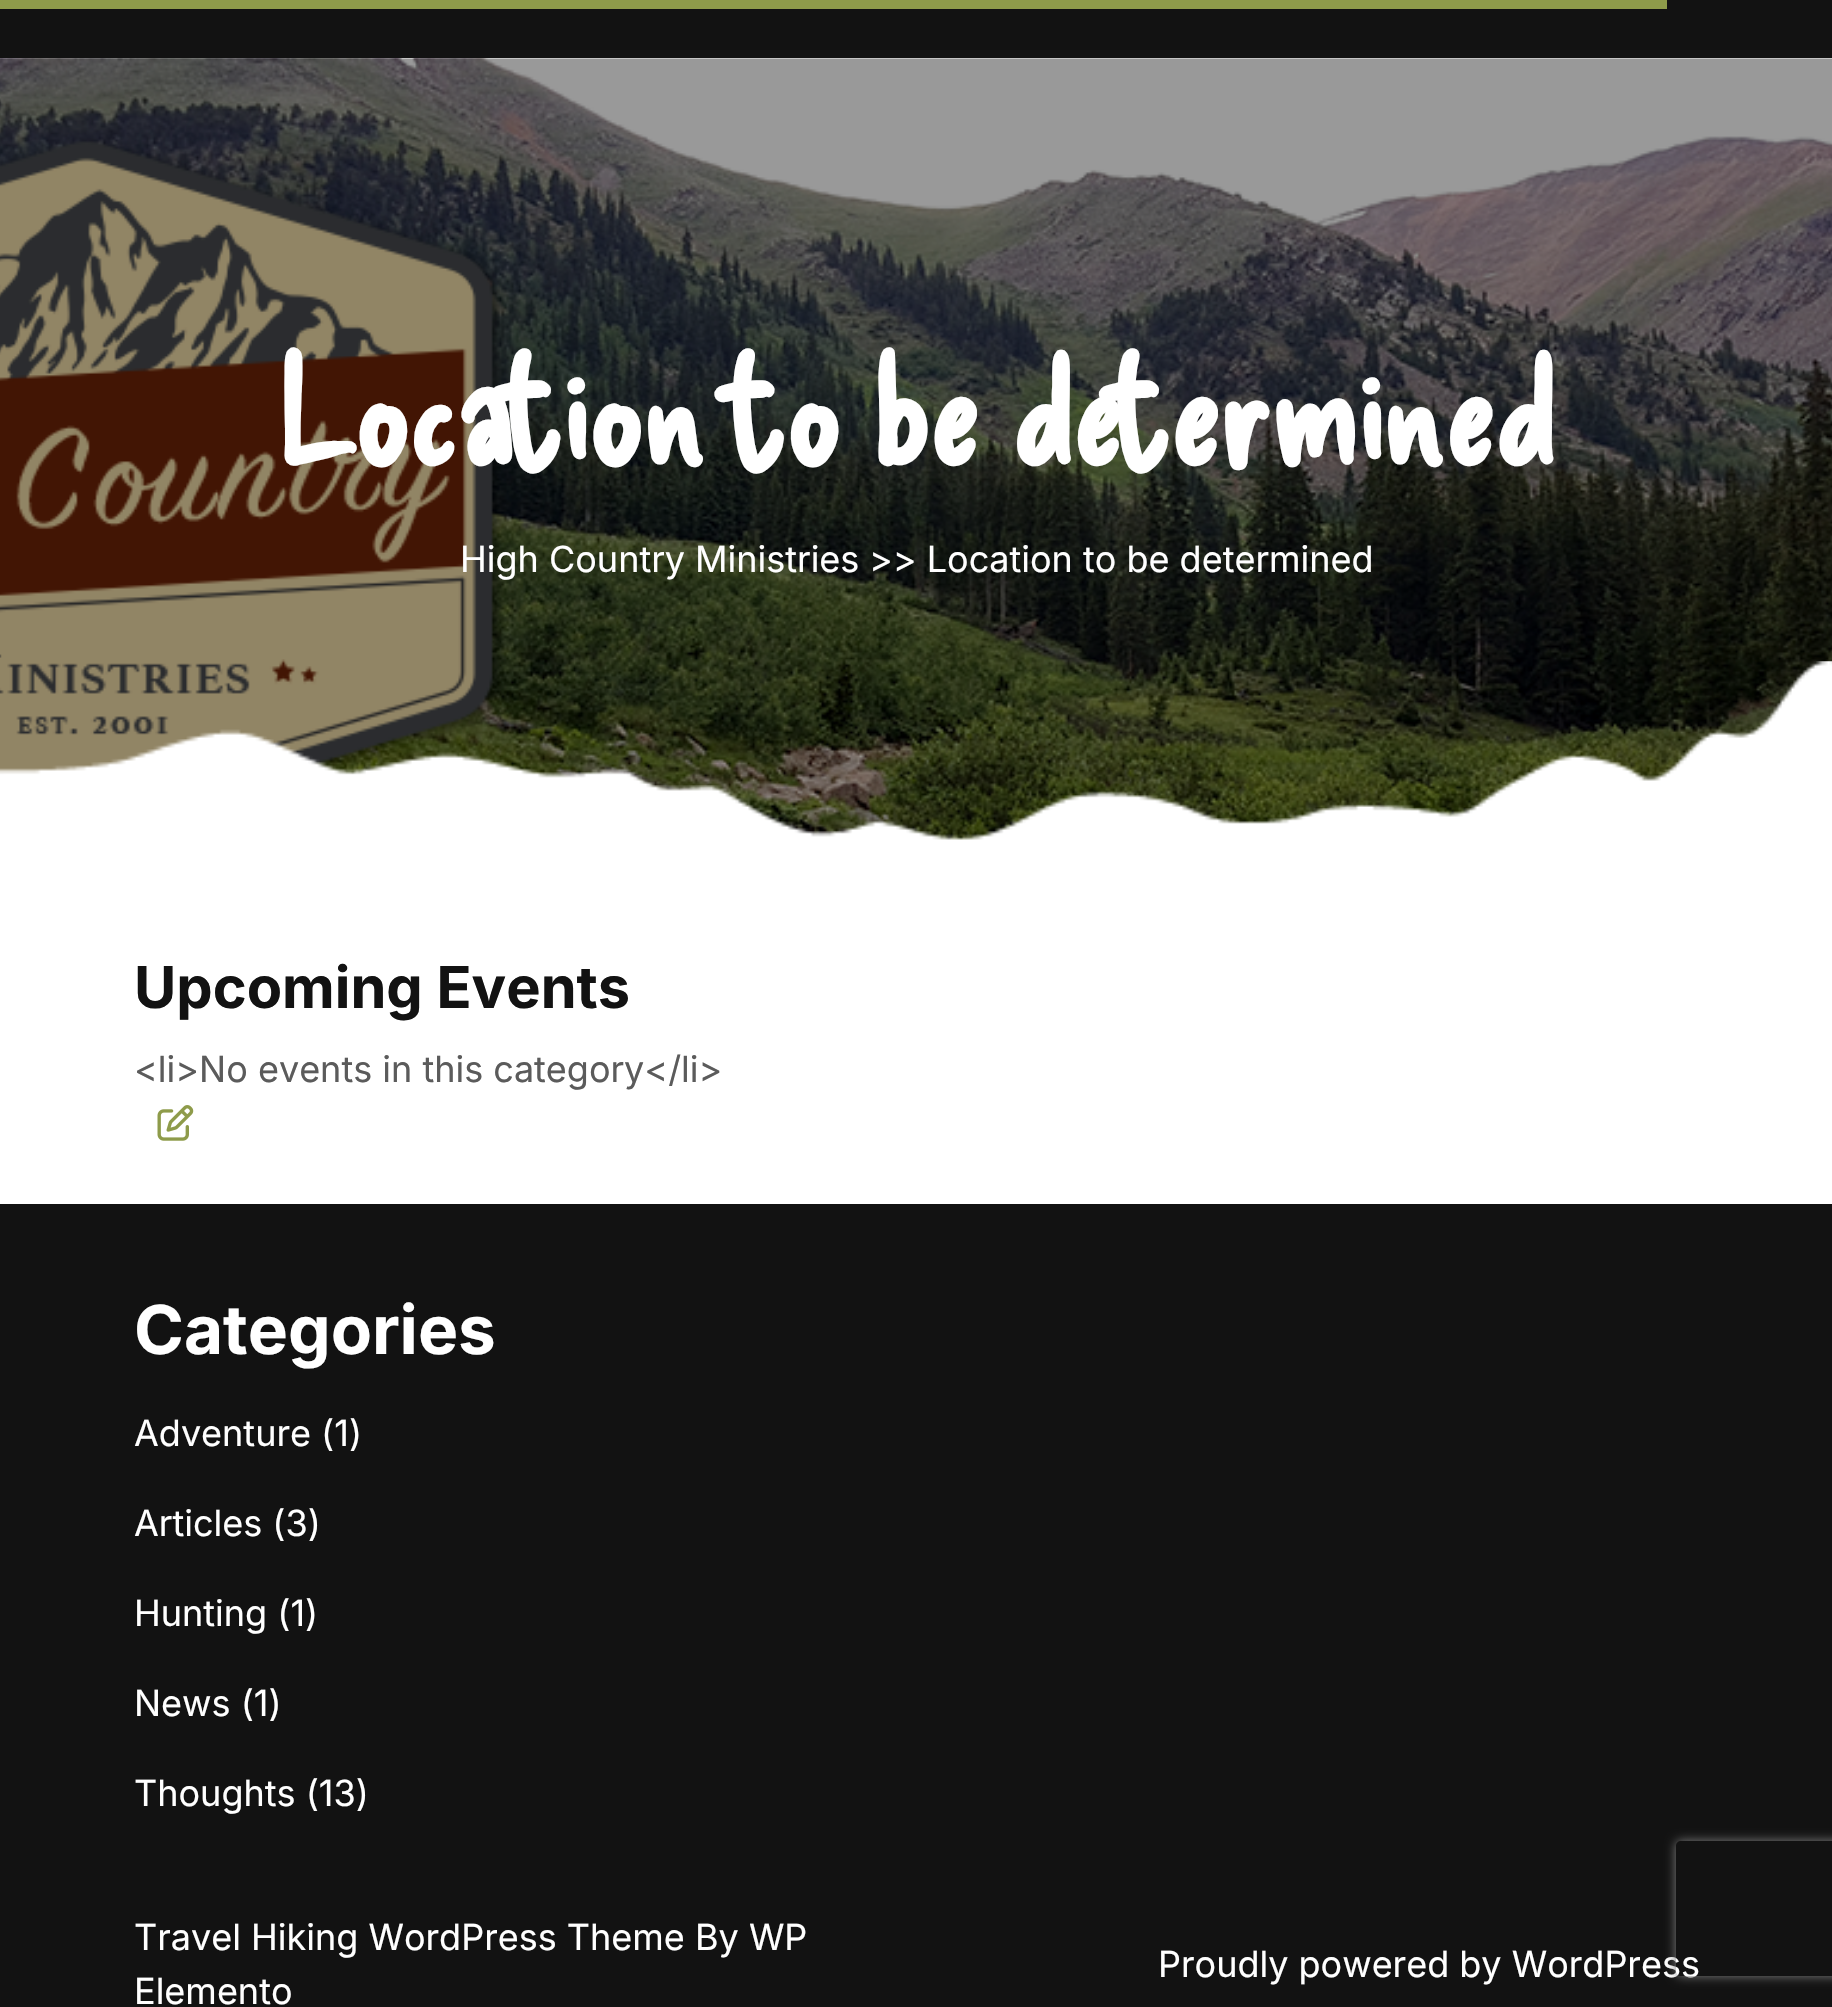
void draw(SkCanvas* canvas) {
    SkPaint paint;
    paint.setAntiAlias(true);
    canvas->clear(0xFFFFFFFF);
    paint.setColor(0xFF121212);
    canvas->drawRect(SkRect::MakeXYWH(0, 0, 1832, 59), paint);
    canvas->drawImageRect(SkImages::DeferredFromEncodedData(SkData::MakeFromFileName("img1.png")), SkRect::MakeXYWH(0, 58, 1832, 782), SkSamplingOptions());
    SkFont font1(fontMgr->matchFamilyStyle("Delicious Handrawn", SkFontStyle::Bold()), 146.25f);
    font1.setSubpixel(true);
    paint.setColor(0xFFFFFFFF);
    canvas->drawString("Location to be determined", 279, 466, font1, paint);
    SkFont font2(fontMgr->matchFamilyStyle("Inter", SkFontStyle::Normal()), 36);
    font2.setSubpixel(true);
    canvas->drawString("High Country Ministries", 460, 572, font2, paint);
    canvas->drawString(">> Location to be determined", 869, 572, font2, paint);
    canvas->drawImageRect(SkImages::DeferredFromEncodedData(SkData::MakeFromFileName("img2.png")), SkRect::MakeXYWH(0, 661, 1832, 185), SkSamplingOptions());
    SkFont font3(fontMgr->matchFamilyStyle("Inter", SkFontStyle::Bold()), 57.75f);
    font3.setSubpixel(true);
    paint.setColor(0xFF121212);
    canvas->drawString("Upcoming Events", 134, 1008, font3, paint);
    paint.setColor(0xFF5B5B5B);
    canvas->drawString("<li>No events in this category</li>", 134, 1082, font2, paint);
    canvas->drawImageRect(SkImages::DeferredFromEncodedData(SkData::MakeFromFileName("img3.png")), SkRect::MakeXYWH(157, 1105, 37, 36), SkSamplingOptions());
    paint.setColor(0xFF8E9B4A);
    canvas->drawRect(SkRect::MakeXYWH(0, 0, 1667, 9), paint);
    paint.setColor(0xFF121212);
    canvas->drawRect(SkRect::MakeXYWH(0, 1204, 1832, 803), paint);
    SkFont font4(fontMgr->matchFamilyStyle("Inter", SkFontStyle::Bold()), 67.5f);
    font4.setSubpixel(true);
    paint.setColor(0xFFFFFFFF);
    canvas->drawString("Categories", 134, 1354, font4, paint);
    canvas->drawString("Adventure (1)", 134, 1446, font2, paint);
    canvas->drawString("Articles (3)", 134, 1536, font2, paint);
    canvas->drawString("Hunting (1)", 134, 1626, font2, paint);
    canvas->drawString("News (1)", 134, 1716, font2, paint);
    canvas->drawString("Thoughts (13)", 134, 1806, font2, paint);
    canvas->drawString("Travel Hiking WordPress Theme By WP", 134, 1950, font2, paint);
    canvas->drawString("Elemento", 134, 2004, font2, paint);
    canvas->drawString("Proudly powered by WordPress", 1158, 1977, font2, paint);
    canvas->save();
    canvas->clipPath(SkPathBuilder(SkPathFillType::kEvenOdd).moveTo(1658, 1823).lineTo(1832, 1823).lineTo(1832, 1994).lineTo(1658, 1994).close().moveTo(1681, 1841).lineTo(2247, 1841).cubicTo(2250, 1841, 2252, 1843, 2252, 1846).lineTo(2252, 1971).cubicTo(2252, 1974, 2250, 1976, 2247, 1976).lineTo(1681, 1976).cubicTo(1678, 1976, 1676, 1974, 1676, 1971).lineTo(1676, 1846).cubicTo(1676, 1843, 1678, 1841, 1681, 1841).close().detach(), true);
    paint.setColor(0xFF808080);
    paint.setMaskFilter(SkMaskFilter::MakeBlur(kNormal_SkBlurStyle, 5.5f));
    canvas->drawRoundRect(SkRect::MakeXYWH(1676, 1841, 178, 135), 5, 5, paint);
    paint.setMaskFilter(nullptr);
    canvas->restore();
}
